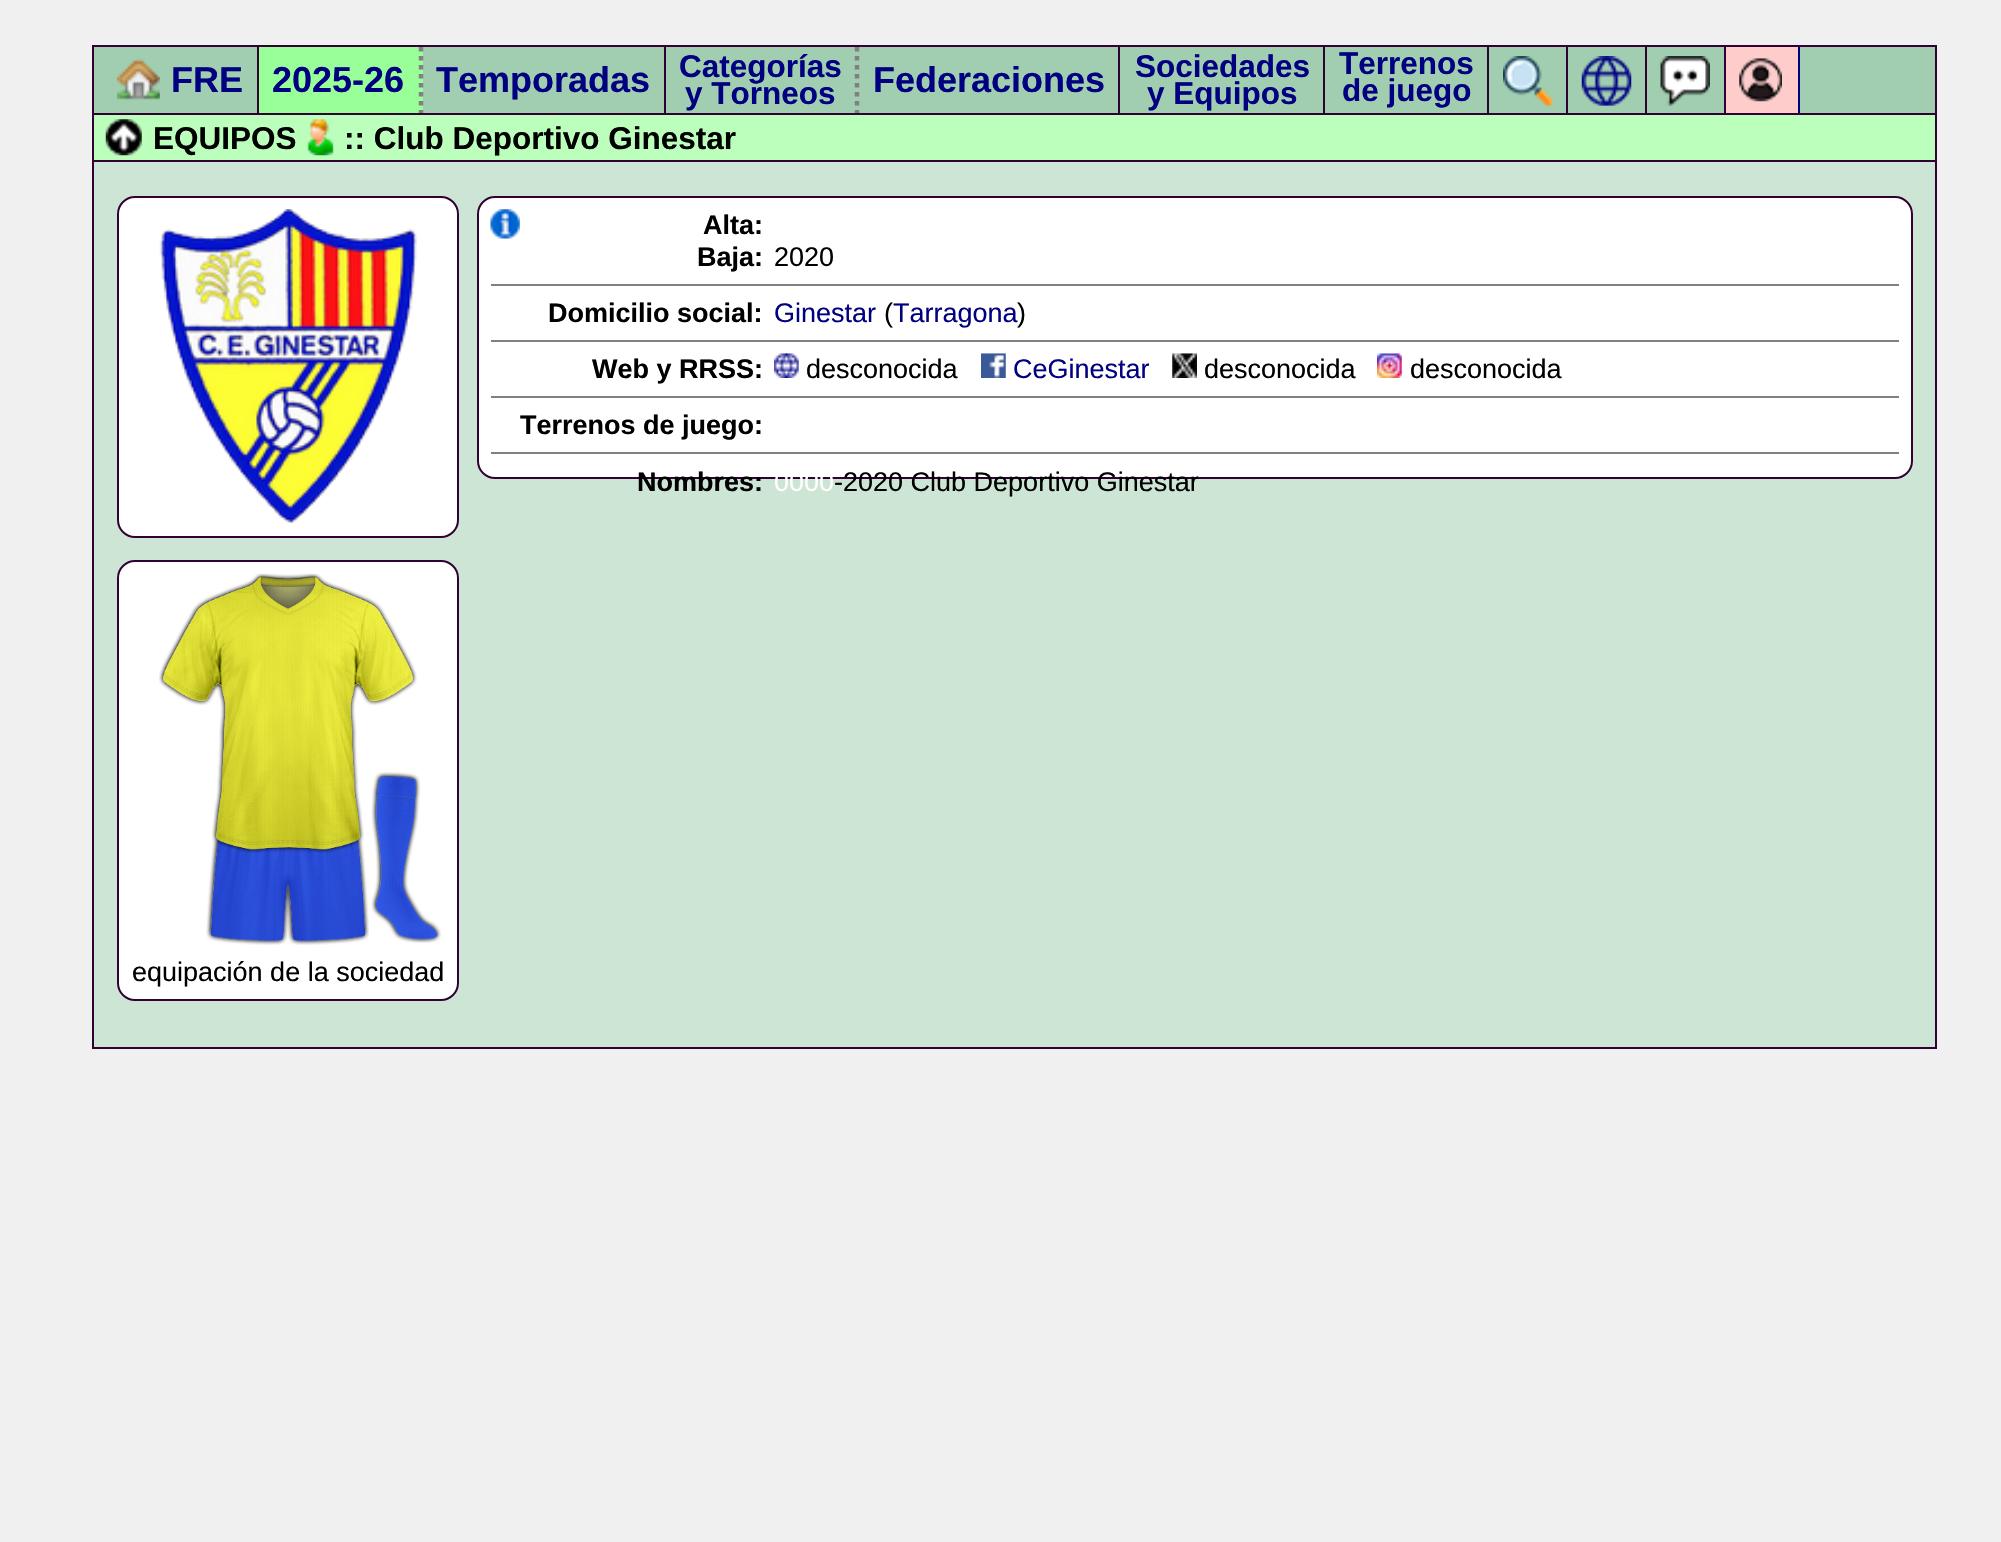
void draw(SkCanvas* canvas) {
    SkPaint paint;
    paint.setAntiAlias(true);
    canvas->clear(0xFFF0F0F0);
    paint.setColor(0xFFCDE5D5);
    canvas->drawRect(SkRect::MakeXYWH(94, 162, 1841, 885), paint);
    paint.setStyle(SkPaint::kStroke_Style);
    paint.setStrokeWidth(2);
    paint.setColor(0xFF330033);
    canvas->drawRect(SkRect::MakeXYWH(93, 46, 1843, 1002), paint);
    paint.setStyle(SkPaint::kFill_Style);
    paint.setColor(0xFFA1CEB0);
    canvas->drawRect(SkRect::MakeXYWH(94, 47, 1841, 66), paint);
    paint.setStyle(SkPaint::kStroke_Style);
    paint.setColor(0xFF330033);
    canvas->drawRect(SkRect::MakeXYWH(93, 46, 1843, 70), paint);
    paint.setStyle(SkPaint::kFill_Style);
    canvas->drawRect(SkRect::MakeXYWH(257, 47, 2, 68), paint);
    canvas->drawImageRect(SkImages::DeferredFromEncodedData(SkData::MakeFromFileName("img1.png")), SkRect::MakeXYWH(117, 58, 43, 42), SkSamplingOptions());
    SkFont font1(fontMgr->matchFamilyStyle("Liberation Sans", SkFontStyle::Bold()), 36);
    font1.setSubpixel(true);
    paint.setColor(0xFF000080);
    canvas->drawString("FRE", 171, 92, font1, paint);
    paint.setColor(0xFF99FF99);
    canvas->drawRect(SkRect::MakeXYWH(259, 47, 164, 66), paint);
    paint.setStyle(SkPaint::kStroke_Style);
    paint.setStrokeWidth(4.5f);
    paint.setColor(0xFF808080);
    paint.setPathEffect(SkDashPathEffect::Make({{4.5f, 4.5f}}, 0));
    canvas->drawPath(SkPathBuilder().moveTo(421, 47).lineTo(421, 117).detach(), paint);
    paint.setPathEffect(nullptr);
    paint.setStyle(SkPaint::kFill_Style);
    paint.setColor(0xFF000080);
    canvas->drawString("2025-26", 272, 92, font1, paint);
    paint.setColor(0xFF330033);
    canvas->drawRect(SkRect::MakeXYWH(664, 47, 2, 70), paint);
    paint.setColor(0xFF000080);
    canvas->drawString("Temporadas", 436, 92, font1, paint);
    paint.setStyle(SkPaint::kStroke_Style);
    paint.setColor(0xFF808080);
    paint.setPathEffect(SkDashPathEffect::Make({{4.5f, 4.5f}}, 0));
    canvas->drawPath(SkPathBuilder().moveTo(857, 47).lineTo(857, 119).detach(), paint);
    paint.setPathEffect(nullptr);
    SkFont font2(fontMgr->matchFamilyStyle("Liberation Sans", SkFontStyle::Bold()), 31.5f);
    font2.setSubpixel(true);
    paint.setStyle(SkPaint::kFill_Style);
    paint.setColor(0xFF000080);
    canvas->drawString("Categorías", 679, 77, font2, paint);
    canvas->drawString("y Torneos", 685, 104, font2, paint);
    paint.setColor(0xFF330033);
    canvas->drawRect(SkRect::MakeXYWH(1118, 47, 2, 70), paint);
    paint.setColor(0xFF000080);
    canvas->drawString("Federaciones", 873, 92, font1, paint);
    paint.setColor(0xFF330033);
    canvas->drawRect(SkRect::MakeXYWH(1323, 47, 2, 72), paint);
    paint.setColor(0xFF000080);
    canvas->drawString("Sociedades", 1135, 77, font2, paint);
    canvas->drawString("y Equipos", 1147, 104, font2, paint);
    paint.setColor(0xFF330033);
    canvas->drawRect(SkRect::MakeXYWH(1487, 47, 2, 70), paint);
    paint.setColor(0xFF000080);
    canvas->drawString("Terrenos", 1339, 74, font2, paint);
    canvas->drawString("de juego", 1342, 101, font2, paint);
    paint.setColor(0xFF330033);
    canvas->drawRect(SkRect::MakeXYWH(1566, 47, 2, 66), paint);
    canvas->drawImageRect(SkImages::DeferredFromEncodedData(SkData::MakeFromFileName("img2.png")), SkRect::MakeXYWH(1503, 56, 50, 50), SkSamplingOptions());
    canvas->drawRect(SkRect::MakeXYWH(1645, 47, 2, 66), paint);
    canvas->drawImageRect(SkImages::DeferredFromEncodedData(SkData::MakeFromFileName("img3.png")), SkRect::MakeXYWH(1581, 56, 51, 50), SkSamplingOptions());
    canvas->drawRect(SkRect::MakeXYWH(1724, 47, 2, 66), paint);
    canvas->drawImageRect(SkImages::DeferredFromEncodedData(SkData::MakeFromFileName("img4.png")), SkRect::MakeXYWH(1660, 56, 50, 50), SkSamplingOptions());
    paint.setColor(0xFFFFCCCC);
    canvas->drawRect(SkRect::MakeXYWH(1726, 47, 72, 66), paint);
    paint.setColor(0xFF000080);
    canvas->drawRect(SkRect::MakeXYWH(1798, 47, 2, 68), paint);
    canvas->drawImageRect(SkImages::DeferredFromEncodedData(SkData::MakeFromFileName("img5.png")), SkRect::MakeXYWH(1739, 58, 43, 44), SkSamplingOptions());
    paint.setColor(0xFFBCFFBC);
    canvas->drawRect(SkRect::MakeXYWH(93, 114, 1843, 47), paint);
    paint.setStyle(SkPaint::kStroke_Style);
    paint.setStrokeWidth(2);
    paint.setColor(0xFF330033);
    canvas->drawRect(SkRect::MakeXYWH(93, 114, 1843, 47), paint);
    canvas->drawImageRect(SkImages::DeferredFromEncodedData(SkData::MakeFromFileName("img6.png")), SkRect::MakeXYWH(105, 119, 37, 37), SkSamplingOptions());
    paint.setStyle(SkPaint::kFill_Style);
    paint.setColor(0xFF000000);
    canvas->drawString("EQUIPOS", 153, 149, font2, paint);
    canvas->drawImageRect(SkImages::DeferredFromEncodedData(SkData::MakeFromFileName("img7.png")), SkRect::MakeXYWH(307, 119, 27, 37), SkSamplingOptions());
    canvas->drawString(":: Club Deportivo Ginestar", 344, 149, font2, paint);
    paint.setColor(0xFFFFFFFF);
    canvas->drawRoundRect(SkRect::MakeXYWH(478, 197, 1434, 281), 17, 17, paint);
    paint.setStyle(SkPaint::kStroke_Style);
    paint.setColor(0xFF330033);
    canvas->drawRoundRect(SkRect::MakeXYWH(478, 197, 1434, 281), 17, 17, paint);
    canvas->drawImageRect(SkImages::DeferredFromEncodedData(SkData::MakeFromFileName("img8.png")), SkRect::MakeXYWH(490, 209, 30, 30), SkSamplingOptions());
    SkFont font3(fontMgr->matchFamilyStyle("Liberation Sans", SkFontStyle::Bold()), 27);
    font3.setSubpixel(true);
    paint.setStyle(SkPaint::kFill_Style);
    paint.setColor(0xFF000000);
    canvas->drawString("Alta:", 703, 234, font3, paint);
    canvas->drawString("Baja:", 697, 266, font3, paint);
    SkFont font4(fontMgr->matchFamilyStyle("Liberation Sans", SkFontStyle::Normal()), 27);
    font4.setSubpixel(true);
    canvas->drawString("2020", 774, 266, font4, paint);
    paint.setColor(0xFF808080);
    canvas->drawRect(SkRect::MakeXYWH(491, 284, 1408, 2), paint);
    paint.setColor(0xFF000000);
    canvas->drawString("Domicilio social:", 548, 322, font3, paint);
    paint.setColor(0xFF000080);
    canvas->drawString("Ginestar", 774, 322, font4, paint);
    paint.setColor(0xFF000000);
    canvas->drawString("(", 884, 322, font4, paint);
    paint.setColor(0xFF000080);
    canvas->drawString("Tarragona", 893, 322, font4, paint);
    paint.setColor(0xFF000000);
    canvas->drawString(")", 1017, 322, font4, paint);
    paint.setColor(0xFF808080);
    canvas->drawRect(SkRect::MakeXYWH(491, 340, 1408, 2), paint);
    paint.setColor(0xFF000000);
    canvas->drawString("Web y RRSS:", 592, 378, font3, paint);
    canvas->drawImageRect(SkImages::DeferredFromEncodedData(SkData::MakeFromFileName("img9.png")), SkRect::MakeXYWH(774, 353, 25, 25), SkSamplingOptions());
    canvas->drawString("desconocida", 806, 378, font4, paint);
    canvas->drawImageRect(SkImages::DeferredFromEncodedData(SkData::MakeFromFileName("img10.png")), SkRect::MakeXYWH(981, 353, 25, 25), SkSamplingOptions());
    paint.setColor(0xFF000080);
    canvas->drawString("CeGinestar", 1013, 378, font4, paint);
    canvas->drawImageRect(SkImages::DeferredFromEncodedData(SkData::MakeFromFileName("img11.png")), SkRect::MakeXYWH(1172, 353, 25, 25), SkSamplingOptions());
    paint.setColor(0xFF000000);
    canvas->drawString("desconocida", 1204, 378, font4, paint);
    canvas->drawImageRect(SkImages::DeferredFromEncodedData(SkData::MakeFromFileName("img12.png")), SkRect::MakeXYWH(1377, 353, 25, 25), SkSamplingOptions());
    canvas->drawString("desconocida", 1410, 378, font4, paint);
    paint.setColor(0xFF808080);
    canvas->drawRect(SkRect::MakeXYWH(491, 396, 1408, 2), paint);
    paint.setColor(0xFF000000);
    canvas->drawString("Terrenos de juego:", 520, 434, font3, paint);
    paint.setColor(0xFF808080);
    canvas->drawRect(SkRect::MakeXYWH(491, 452, 1408, 2), paint);
    paint.setColor(0xFF000000);
    canvas->drawString("Nombres:", 637, 491, font3, paint);
    paint.setColor(0xFFFFFFFF);
    canvas->drawString("0000", 774, 491, font4, paint);
    paint.setColor(0xFF000000);
    canvas->drawString("-2020 Club Deportivo Ginestar", 834, 491, font4, paint);
    paint.setColor(0xFFFFFFFF);
    canvas->drawRoundRect(SkRect::MakeXYWH(118, 197, 340, 340), 17, 17, paint);
    paint.setStyle(SkPaint::kStroke_Style);
    paint.setColor(0xFF330033);
    canvas->drawRoundRect(SkRect::MakeXYWH(118, 197, 340, 340), 17, 17, paint);
    canvas->drawImageRect(SkImages::DeferredFromEncodedData(SkData::MakeFromFileName("img13.png")), SkRect::MakeXYWH(159, 209, 258, 314), SkSamplingOptions());
    paint.setStyle(SkPaint::kFill_Style);
    paint.setColor(0xFFFFFFFF);
    canvas->drawRoundRect(SkRect::MakeXYWH(118, 561, 340, 439), 17, 17, paint);
    paint.setStyle(SkPaint::kStroke_Style);
    paint.setColor(0xFF330033);
    canvas->drawRoundRect(SkRect::MakeXYWH(118, 561, 340, 439), 17, 17, paint);
    canvas->drawImageRect(SkImages::DeferredFromEncodedData(SkData::MakeFromFileName("img15.png")), SkRect::MakeXYWH(206, 835, 163, 110), SkSamplingOptions());
    canvas->drawImageRect(SkImages::DeferredFromEncodedData(SkData::MakeFromFileName("img16.png")), SkRect::MakeXYWH(371, 772, 70, 171), SkSamplingOptions());
    canvas->drawImageRect(SkImages::DeferredFromEncodedData(SkData::MakeFromFileName("img14.png")), SkRect::MakeXYWH(159, 573, 258, 280), SkSamplingOptions());
    paint.setStyle(SkPaint::kFill_Style);
    paint.setColor(0xFF000000);
    canvas->drawString("equipación de la sociedad", 132, 981, font4, paint);
}
